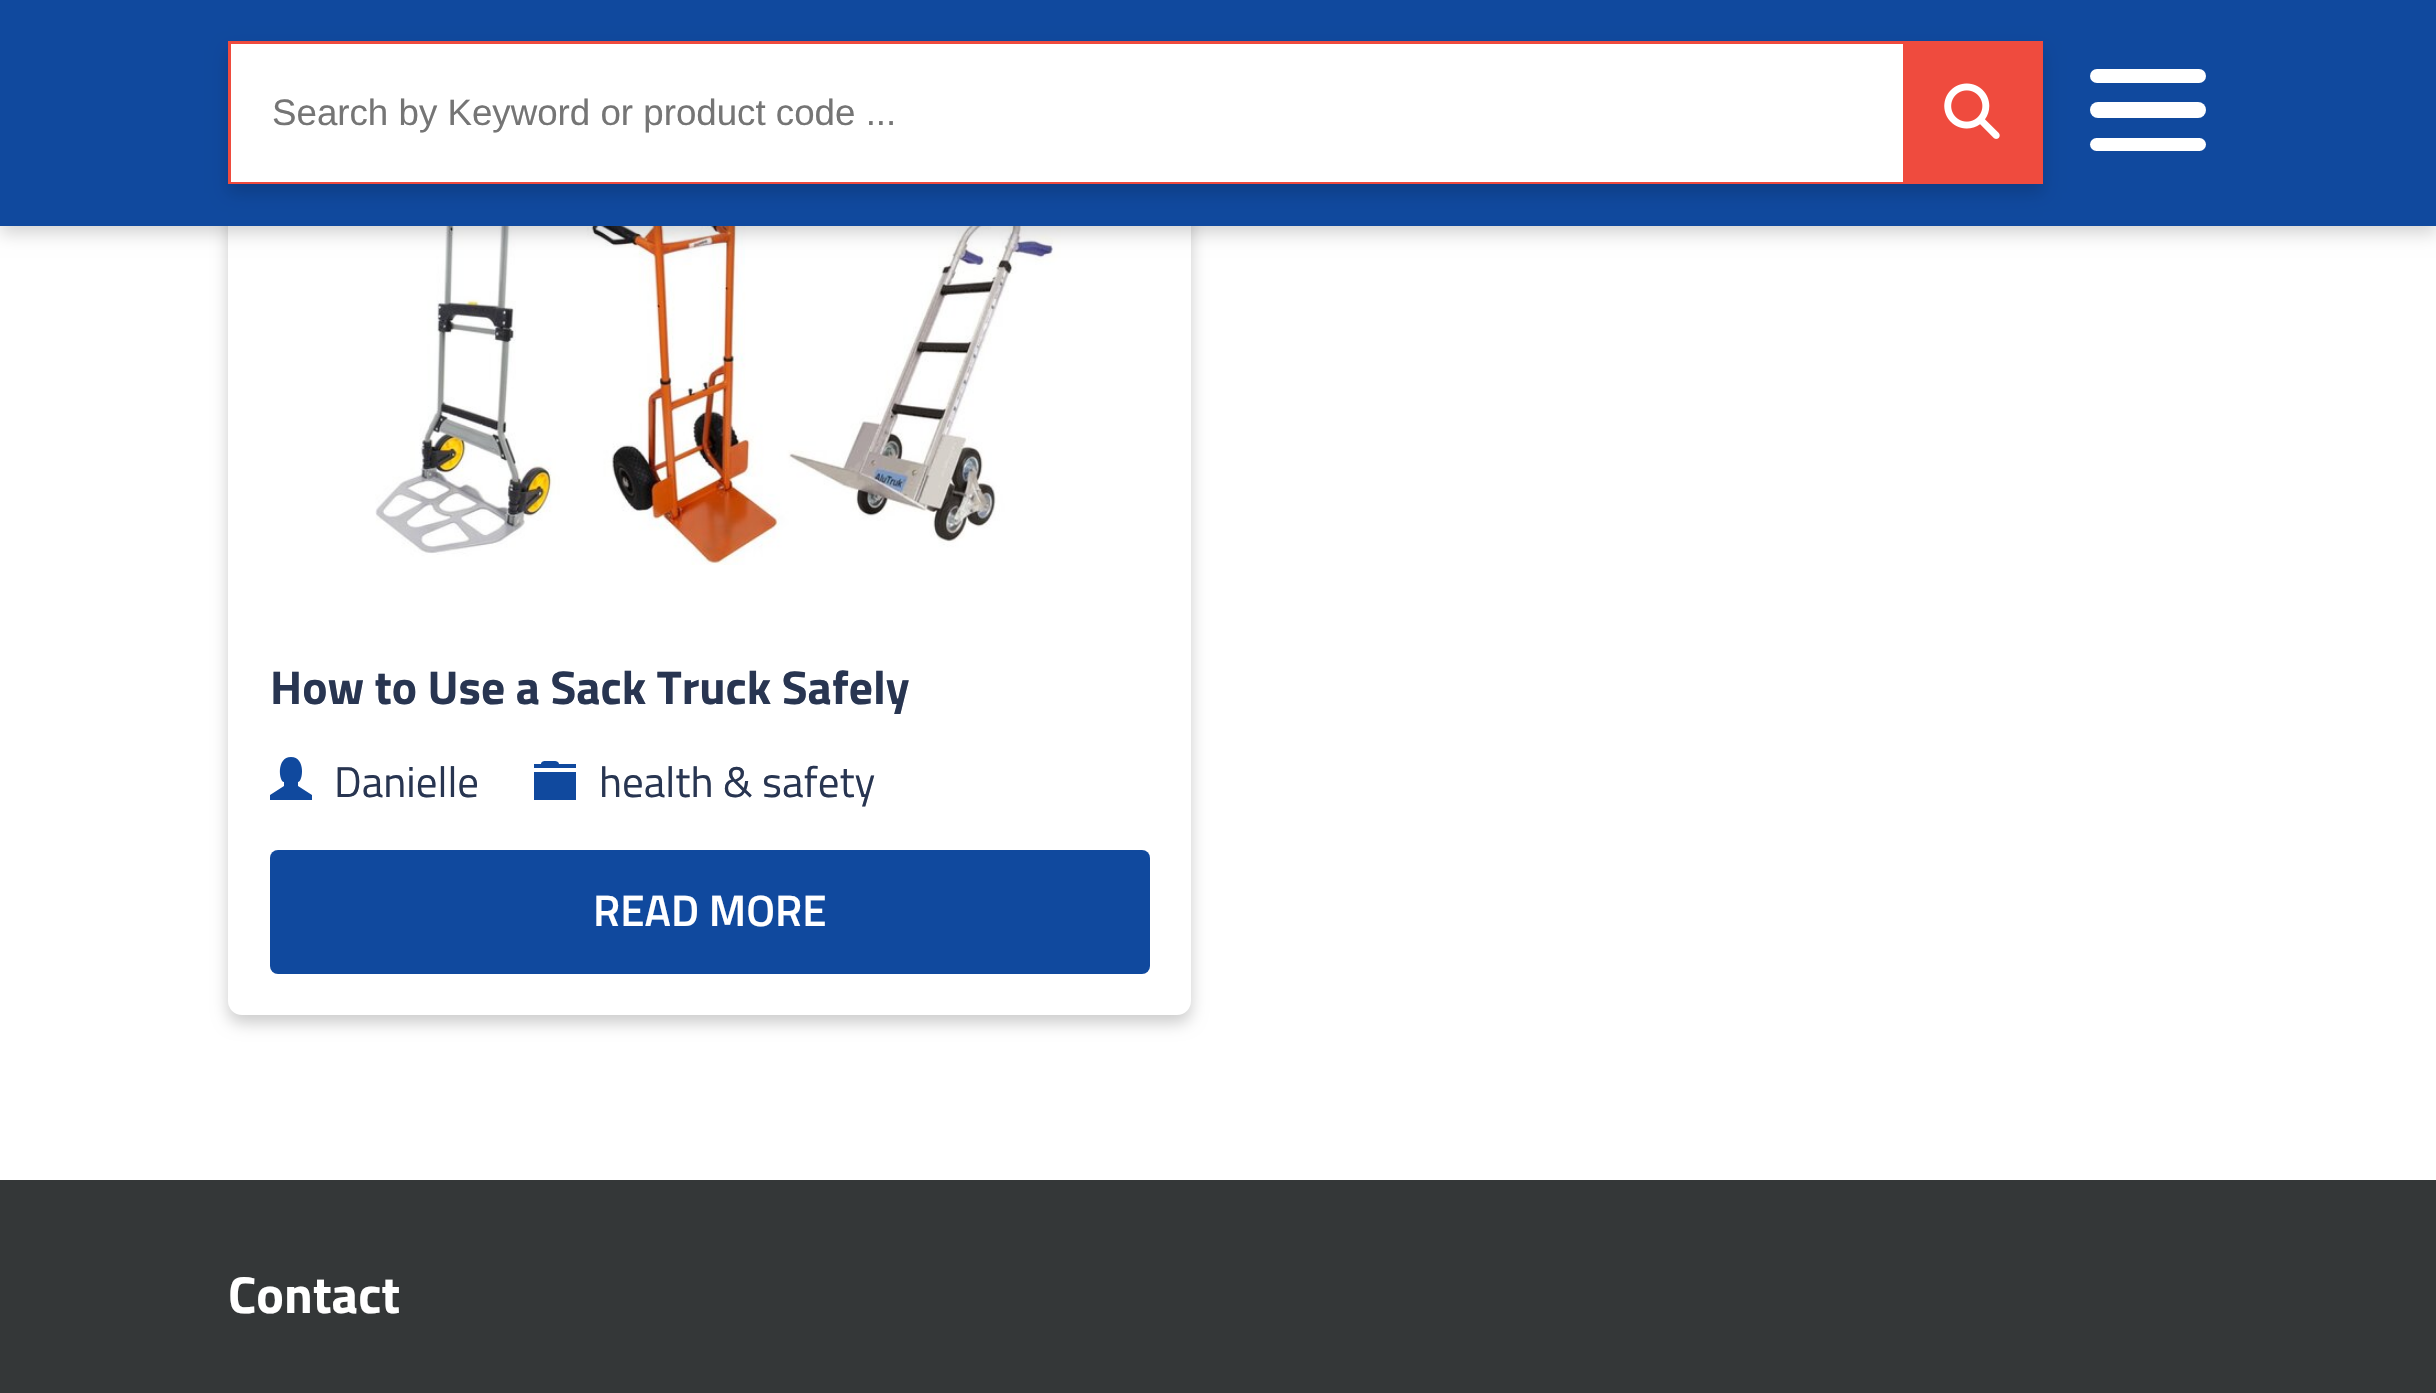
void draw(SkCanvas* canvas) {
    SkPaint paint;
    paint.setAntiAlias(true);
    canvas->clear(0xFFFFFFFF);
    paint.setColor(0x33000000);
    paint.setMaskFilter(SkMaskFilter::MakeBlur(kNormal_SkBlurStyle, 8));
    canvas->drawRoundRect(SkRect::MakeXYWH(228, 105, 963, 918), 14, 14, paint);
    paint.setMaskFilter(nullptr);
    paint.setColor(0xFFFFFFFF);
    canvas->drawRoundRect(SkRect::MakeXYWH(228, 96, 963, 919), 14, 14, paint);
    canvas->drawImageRect(SkImages::DeferredFromEncodedData(SkData::MakeFromFileName("img2.png")), SkRect::MakeXYWH(375, 226, 686, 339), SkSamplingOptions());
    paint.setColor(0x29000000);
    paint.setMaskFilter(SkMaskFilter::MakeBlur(kNormal_SkBlurStyle, 8));
    canvas->drawRect(SkRect::MakeXYWH(0, 8, 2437, 226), paint);
    paint.setMaskFilter(nullptr);
    paint.setColor(0xFF10499E);
    canvas->drawRect(SkRect::MakeXYWH(0, 0, 2436, 226), paint);
    paint.setColor(0x29000000);
    paint.setMaskFilter(SkMaskFilter::MakeBlur(kNormal_SkBlurStyle, 8));
    canvas->drawRect(SkRect::MakeXYWH(228, 50, 1815, 143), paint);
    paint.setMaskFilter(nullptr);
    paint.setStyle(SkPaint::kStroke_Style);
    paint.setStrokeWidth(3);
    paint.setColor(0xFFEF4B3E);
    canvas->drawRect(SkRect::MakeXYWH(229.5f, 42.5f, 1812, 140), paint);
    paint.setStyle(SkPaint::kFill_Style);
    paint.setColor(0xFFFFFFFF);
    canvas->drawRect(SkRect::MakeXYWH(231, 44, 1672, 138), paint);
    SkFont font1(fontMgr->matchFamilyStyle("Liberation Sans", SkFontStyle::Normal()), 36.7f);
    font1.setSubpixel(true);
    paint.setColor(0xFF757575);
    canvas->drawString("Search by Keyword or product code ...", 272, 125, font1, paint);
    paint.setColor(0xFFEF4B3E);
    canvas->drawRect(SkRect::MakeXYWH(1903, 44, 137, 137), paint);
    canvas->drawImageRect(SkImages::DeferredFromEncodedData(SkData::MakeFromFileName("img1.png")), SkRect::MakeXYWH(1944, 83, 56, 56), SkSamplingOptions());
    paint.setColor(0xFFFFFFFF);
    canvas->drawRoundRect(SkRect::MakeXYWH(2090, 69, 116, 14), 7, 7, paint);
    canvas->drawRoundRect(SkRect::MakeXYWH(2090, 102, 116, 16), 8, 8, paint);
    canvas->drawRoundRect(SkRect::MakeXYWH(2090, 138, 116, 13), 6.5f, 6.5f, paint);
    SkFont font2(fontMgr->matchFamilyStyle("Titillium Web", SkFontStyle::Bold()), 47.5f);
    font2.setSubpixel(true);
    paint.setColor(0xFF283551);
    canvas->drawString("How to Use a Sack Truck Safely", 270, 704, font2, paint);
    paint.setColor(0xFF10499E);
    canvas->drawPath(SkPathBuilder().moveTo(270, 800).lineTo(270, 795).lineTo(284, 786).lineTo(284, 782).cubicTo(279, 782, 276, 757, 291, 757).cubicTo(306, 757, 303, 782, 298, 782).lineTo(298, 786).lineTo(312, 795).lineTo(312, 800).close().detach(), paint);
    SkFont font3(fontMgr->matchFamilyStyle("Titillium Web", SkFontStyle::Normal()), 43);
    font3.setSubpixel(true);
    paint.setColor(0xFF283551);
    canvas->drawString("Danielle", 334, 797, font3, paint);
    paint.setColor(0xFF10499E);
    canvas->drawPath(SkPathBuilder().moveTo(534, 800).lineTo(534, 772).lineTo(576, 772).lineTo(576, 800).close().moveTo(534, 768).lineTo(534, 764).lineTo(541, 764).cubicTo(541, 760, 547, 761, 550, 761).cubicTo(552, 761, 559, 760, 559, 764).lineTo(576, 764).lineTo(576, 768).close().detach(), paint);
    paint.setColor(0xFF283551);
    canvas->drawString("health & safety", 599, 797, font3, paint);
    paint.setColor(0xFF10499E);
    canvas->drawRoundRect(SkRect::MakeXYWH(270, 850, 880, 124), 8, 8, paint);
    SkFont font4(fontMgr->matchFamilyStyle("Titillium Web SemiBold", SkFontStyle(600, SkFontStyle::kNormal_Width, SkFontStyle::kUpright_Slant)), 44);
    font4.setSubpixel(true);
    paint.setColor(0xFFFFFFFF);
    canvas->drawString("READ MORE", 593, 926, font4, paint);
    paint.setColor(0xFF343738);
    canvas->drawRect(SkRect::MakeXYWH(0, 1180, 2436, 213), paint);
    SkFont font5(fontMgr->matchFamilyStyle("Titillium Web", SkFontStyle::Bold()), 52);
    font5.setSubpixel(true);
    paint.setColor(0xFFFFFFFF);
    canvas->drawString("Contact", 228, 1313, font5, paint);
}
